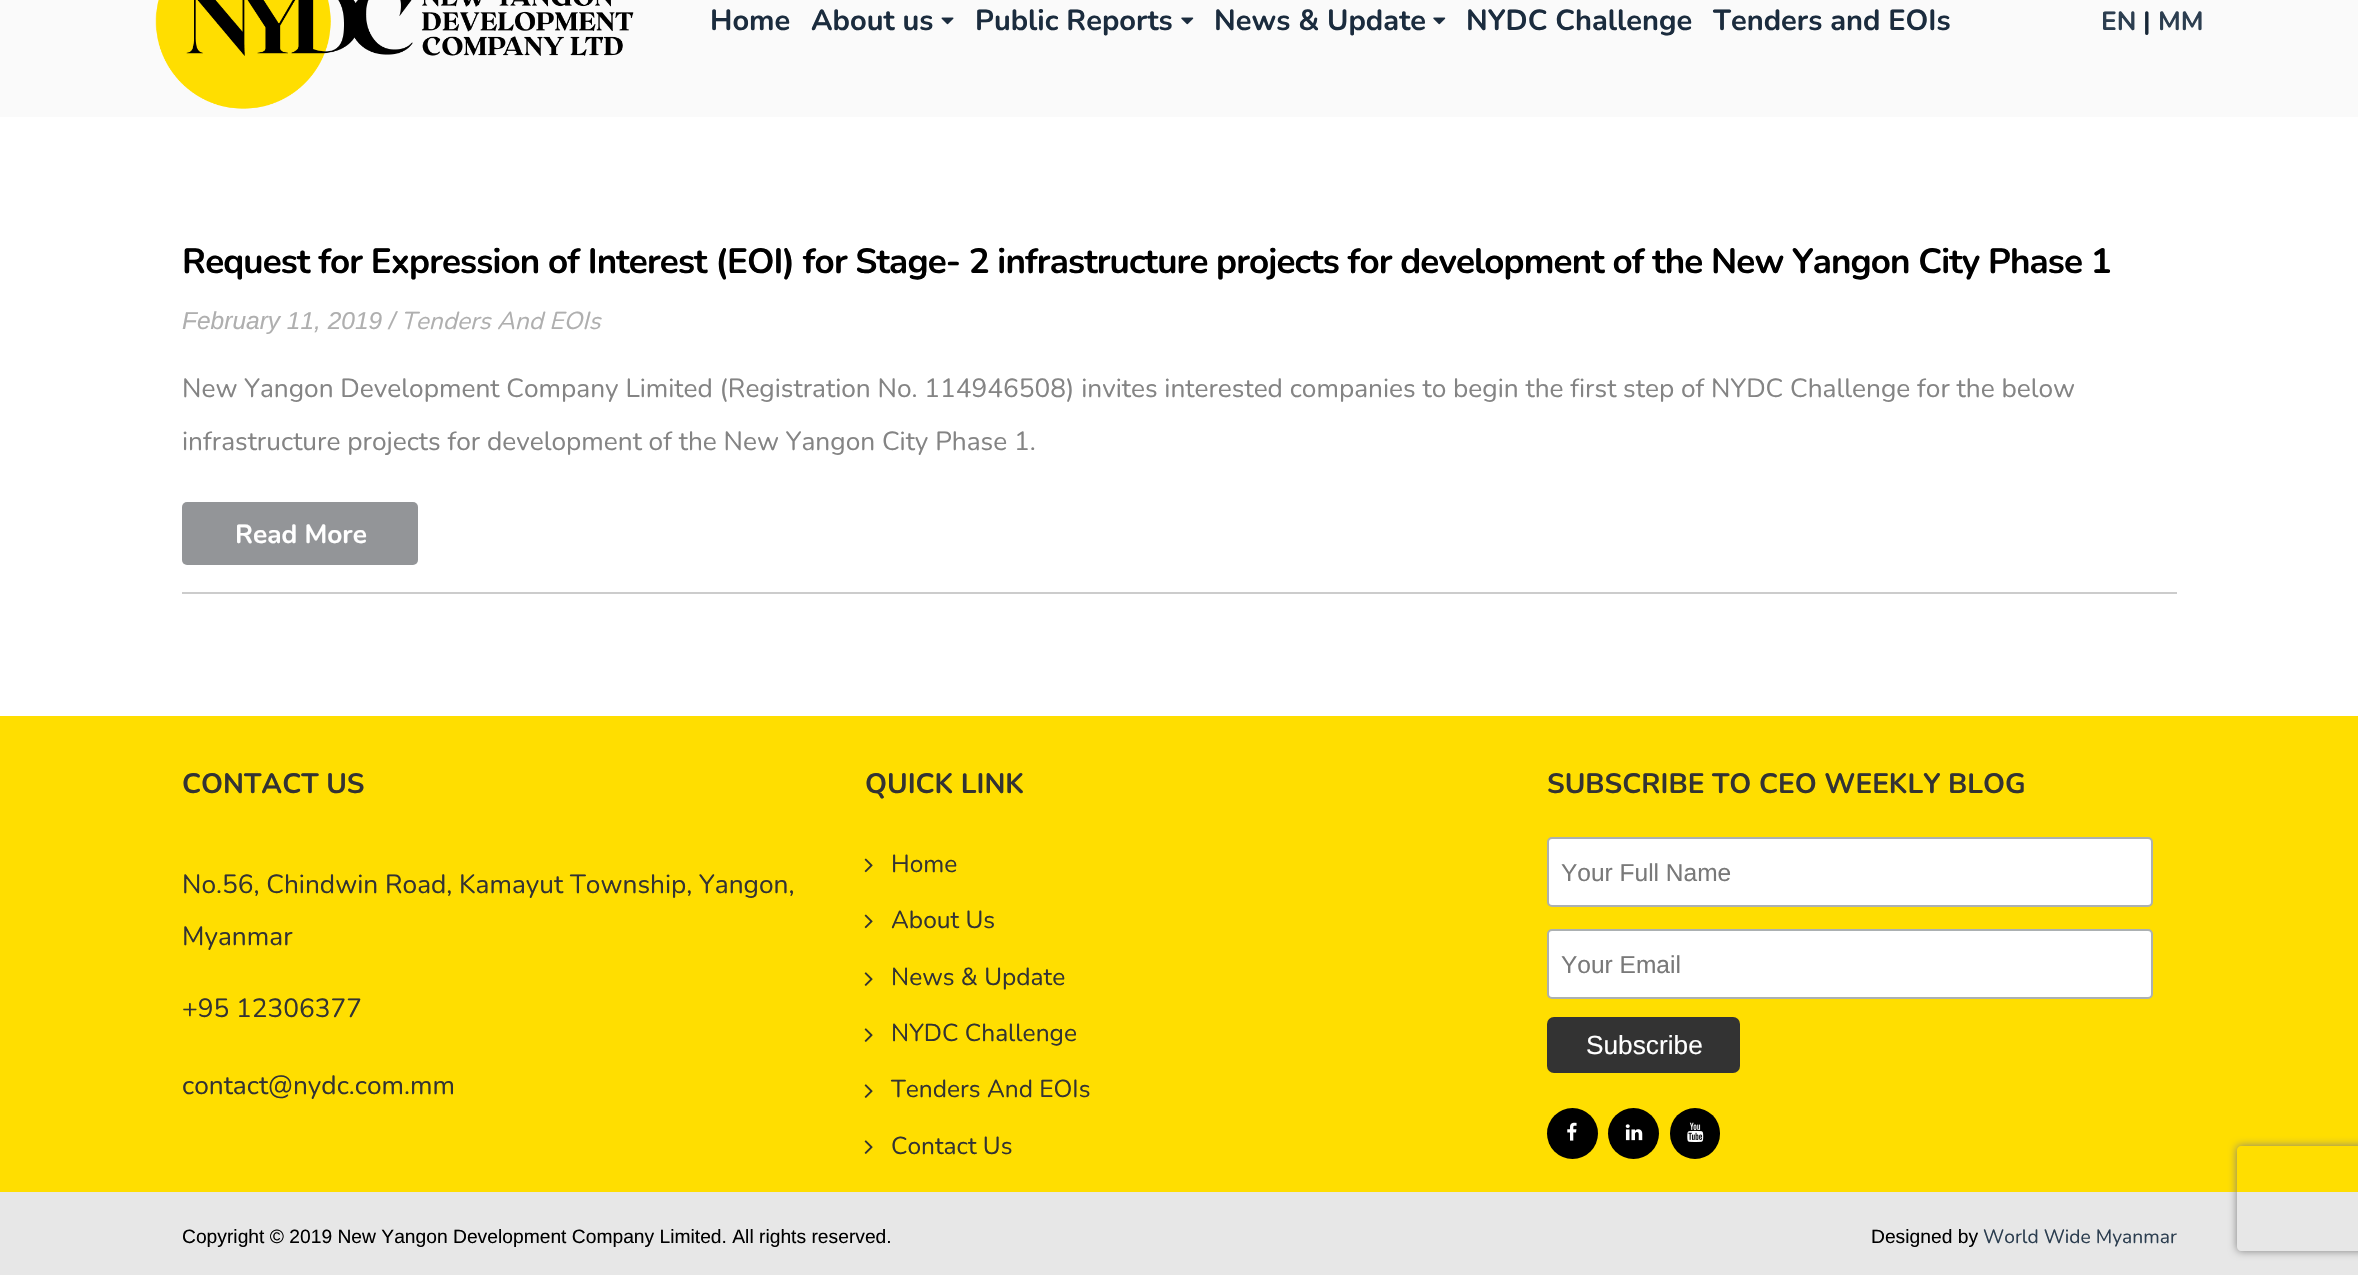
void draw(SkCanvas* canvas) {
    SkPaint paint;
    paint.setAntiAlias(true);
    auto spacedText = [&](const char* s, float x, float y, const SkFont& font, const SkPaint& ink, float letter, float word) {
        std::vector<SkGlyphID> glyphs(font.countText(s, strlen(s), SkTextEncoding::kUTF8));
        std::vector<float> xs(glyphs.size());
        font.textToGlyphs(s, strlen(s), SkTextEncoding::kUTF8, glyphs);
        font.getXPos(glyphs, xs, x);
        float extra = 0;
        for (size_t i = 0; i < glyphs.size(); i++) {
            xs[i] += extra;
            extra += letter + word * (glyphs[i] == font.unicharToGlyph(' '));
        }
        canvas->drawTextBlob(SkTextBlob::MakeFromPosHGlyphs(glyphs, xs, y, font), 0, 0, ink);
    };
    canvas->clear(0xFFFAFAFA);
    canvas->drawImageRect(SkImages::DeferredFromEncodedData(SkData::MakeFromFileName("img1.png")), SkRect::MakeXYWH(155, 0, 479, 109), SkSamplingOptions());
    SkFont font1(fontMgr->matchFamilyStyle("Nunito", SkFontStyle::Bold()), 29);
    font1.setSubpixel(true);
    paint.setColor(0xFF1B2C3E);
    canvas->drawString("Home", 710, 30, font1, paint);
    canvas->drawString("About us", 811, 30, font1, paint);
    canvas->drawImageRect(SkImages::DeferredFromEncodedData(SkData::MakeFromFileName("img2.png")), SkRect::MakeXYWH(941, 17, 13, 8), SkSamplingOptions());
    canvas->drawString("Public Reports", 975, 30, font1, paint);
    canvas->drawImageRect(SkImages::DeferredFromEncodedData(SkData::MakeFromFileName("img3.png")), SkRect::MakeXYWH(1181, 17, 13, 8), SkSamplingOptions());
    canvas->drawString("News & Update", 1214, 30, font1, paint);
    canvas->drawImageRect(SkImages::DeferredFromEncodedData(SkData::MakeFromFileName("img3.png")), SkRect::MakeXYWH(1433, 17, 13, 8), SkSamplingOptions());
    canvas->drawString("NYDC Challenge", 1466, 30, font1, paint);
    canvas->drawString("Tenders and EOIs", 1713, 30, font1, paint);
    SkFont font2(fontMgr->matchFamilyStyle("Nunito", SkFontStyle::Bold()), 26.25f);
    font2.setSubpixel(true);
    paint.setColor(0xFF2C3E50);
    canvas->drawString("EN", 2101, 30, font2, paint);
    paint.setColor(0xFF172737);
    canvas->drawString("|", 2143, 30, font2, paint);
    paint.setColor(0xFF2C3E50);
    canvas->drawString("MM", 2158, 30, font2, paint);
    paint.setColor(0xFFFFFFFF);
    canvas->drawRect(SkRect::MakeXYWH(0, 117, 2358, 599), paint);
    paint.setColor(0xFFCCCCCC);
    canvas->drawRect(SkRect::MakeXYWH(182, 592, 1995, 2), paint);
    SkFont font3(fontMgr->matchFamilyStyle("Nunito", SkFontStyle::Bold()), 35);
    font3.setSubpixel(true);
    paint.setColor(0xFF000000);
    spacedText("Request for Expression of Interest (EOI) for Stage- 2 infrastructure projects for development of the New Yangon City Phase 1", 182, 273, font3, paint, -0.88f, 0);
    SkFont font4(fontMgr->matchFamilyStyle("Liberation Sans", SkFontStyle::Italic()), 24.5f);
    font4.setSubpixel(true);
    paint.setColor(0xFFAFAFAF);
    canvas->drawString("February 11, 2019 /", 182, 329, font4, paint);
    SkFont font5(fontMgr->matchFamilyStyle("Nunito", SkFontStyle::Italic()), 24.5f);
    font5.setSubpixel(true);
    canvas->drawString("Tenders And EOIs", 401, 329, font5, paint);
    SkFont font6(fontMgr->matchFamilyStyle("Nunito", SkFontStyle::Normal()), 26.25f);
    font6.setSubpixel(true);
    paint.setColor(0xFF848484);
    canvas->drawString("New Yangon Development Company Limited (Registration No. 114946508) invites interested companies to begin the first step of NYDC Challenge for the below", 182, 397, font6, paint);
    canvas->drawString("infrastructure projects for development of the New Yangon City Phase 1.", 182, 450, font6, paint);
    paint.setColor(0xFF939598);
    canvas->drawRoundRect(SkRect::MakeXYWH(182, 502, 236, 63), 5, 5, paint);
    paint.setColor(0xFFFFFFFF);
    canvas->drawString("Read More", 235, 543, font2, paint);
    paint.setColor(0xFFFFDE00);
    canvas->drawRect(SkRect::MakeXYWH(0, 716, 2358, 476), paint);
    SkFont font7(fontMgr->matchFamilyStyle("Nunito", SkFontStyle::Bold()), 28);
    font7.setSubpixel(true);
    paint.setColor(0xFF333333);
    canvas->drawString("CONTACT US", 182, 793, font7, paint);
    canvas->drawString("No.56, Chindwin Road, Kamayut Township, Yangon,", 182, 893, font6, paint);
    canvas->drawString("Myanmar", 182, 945, font6, paint);
    canvas->drawString("+95 12306377", 182, 1017, font6, paint);
    canvas->drawString("contact@nydc.com.mm", 182, 1094, font6, paint);
    canvas->drawString("QUICK LINK", 865, 793, font7, paint);
    canvas->drawImageRect(SkImages::DeferredFromEncodedData(SkData::MakeFromFileName("img4.png")), SkRect::MakeXYWH(864, 858, 9, 15), SkSamplingOptions());
    SkFont font8(fontMgr->matchFamilyStyle("Nunito", SkFontStyle::Normal()), 24.5f);
    font8.setSubpixel(true);
    canvas->drawString("Home", 891, 872, font8, paint);
    canvas->drawImageRect(SkImages::DeferredFromEncodedData(SkData::MakeFromFileName("img4.png")), SkRect::MakeXYWH(864, 914, 9, 15), SkSamplingOptions());
    canvas->drawString("About Us", 891, 928, font8, paint);
    canvas->drawImageRect(SkImages::DeferredFromEncodedData(SkData::MakeFromFileName("img5.png")), SkRect::MakeXYWH(864, 972, 9, 14), SkSamplingOptions());
    canvas->drawString("News & Update", 891, 985, font8, paint);
    canvas->drawImageRect(SkImages::DeferredFromEncodedData(SkData::MakeFromFileName("img5.png")), SkRect::MakeXYWH(864, 1028, 9, 14), SkSamplingOptions());
    canvas->drawString("NYDC Challenge", 891, 1041, font8, paint);
    canvas->drawImageRect(SkImages::DeferredFromEncodedData(SkData::MakeFromFileName("img5.png")), SkRect::MakeXYWH(864, 1084, 9, 14), SkSamplingOptions());
    canvas->drawString("Tenders And EOIs", 891, 1097, font8, paint);
    canvas->drawImageRect(SkImages::DeferredFromEncodedData(SkData::MakeFromFileName("img5.png")), SkRect::MakeXYWH(864, 1140, 9, 14), SkSamplingOptions());
    canvas->drawString("Contact Us", 891, 1154, font8, paint);
    canvas->drawString("SUBSCRIBE TO CEO WEEKLY BLOG", 1547, 793, font7, paint);
    paint.setColor(0xFFFFFFFF);
    canvas->drawRoundRect(SkRect::MakeXYWH(1548, 838, 604, 68), 4, 4, paint);
    paint.setStyle(SkPaint::kStroke_Style);
    paint.setStrokeWidth(2);
    paint.setColor(0xFFABB0B2);
    canvas->drawRoundRect(SkRect::MakeXYWH(1548, 838, 604, 68), 4, 4, paint);
    SkFont font9(fontMgr->matchFamilyStyle("Liberation Sans", SkFontStyle::Normal()), 24.5f);
    font9.setSubpixel(true);
    paint.setStyle(SkPaint::kFill_Style);
    paint.setColor(0xFF797979);
    canvas->drawString("Your Full Name", 1561, 881, font9, paint);
    paint.setColor(0xFFFFFFFF);
    canvas->drawRoundRect(SkRect::MakeXYWH(1548, 930, 604, 68), 4, 4, paint);
    paint.setStyle(SkPaint::kStroke_Style);
    paint.setColor(0xFFABB0B2);
    canvas->drawRoundRect(SkRect::MakeXYWH(1548, 930, 604, 68), 4, 4, paint);
    paint.setStyle(SkPaint::kFill_Style);
    paint.setColor(0xFF797979);
    canvas->drawString("Your Email", 1561, 973, font9, paint);
    paint.setColor(0xFF333333);
    canvas->drawRoundRect(SkRect::MakeXYWH(1547, 1017, 193, 56), 7, 7, paint);
    SkFont font10(fontMgr->matchFamilyStyle("Liberation Sans", SkFontStyle::Normal()), 26.25f);
    font10.setSubpixel(true);
    paint.setColor(0xFFFFFFFF);
    canvas->drawString("Subscribe", 1586, 1054, font10, paint);
    paint.setColor(0xFF000000);
    canvas->drawCircle(1572.5f, 1133.5f, 25.5f, paint);
    canvas->drawImageRect(SkImages::DeferredFromEncodedData(SkData::MakeFromFileName("img6.png")), SkRect::MakeXYWH(1567, 1122, 10, 19), SkSamplingOptions());
    canvas->drawCircle(1633.5f, 1133.5f, 25.5f, paint);
    canvas->drawImageRect(SkImages::DeferredFromEncodedData(SkData::MakeFromFileName("img7.png")), SkRect::MakeXYWH(1625, 1124, 18, 17), SkSamplingOptions());
    canvas->drawRoundRect(SkRect::MakeXYWH(1670, 1108, 50, 51), 25, 25, paint);
    canvas->drawImageRect(SkImages::DeferredFromEncodedData(SkData::MakeFromFileName("img8.png")), SkRect::MakeXYWH(1687, 1122, 17, 20), SkSamplingOptions());
    paint.setColor(0xFFE7E7E7);
    canvas->drawRect(SkRect::MakeXYWH(0, 1192, 2358, 83), paint);
    SkFont font11(fontMgr->matchFamilyStyle("Liberation Sans", SkFontStyle::Normal()), 19.25f);
    font11.setSubpixel(true);
    paint.setColor(0xFF000000);
    canvas->drawString("Copyright © 2019 New Yangon Development Company Limited. All rights reserved.", 182, 1243, font11, paint);
    canvas->drawString("Designed by", 1871, 1243, font11, paint);
    SkFont font12(fontMgr->matchFamilyStyle("Nunito", SkFontStyle::Normal()), 19.25f);
    font12.setSubpixel(true);
    paint.setColor(0xFF2C3E50);
    canvas->drawString("World Wide Myanmar", 1983, 1243, font12, paint);
    canvas->save();
    canvas->clipPath(SkPathBuilder(SkPathFillType::kEvenOdd).moveTo(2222, 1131).lineTo(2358, 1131).lineTo(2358, 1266).lineTo(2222, 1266).close().moveTo(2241, 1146).lineTo(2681, 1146).cubicTo(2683, 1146, 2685, 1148, 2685, 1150).lineTo(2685, 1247).cubicTo(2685, 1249, 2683, 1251, 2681, 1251).lineTo(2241, 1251).cubicTo(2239, 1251, 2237, 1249, 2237, 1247).lineTo(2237, 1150).cubicTo(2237, 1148, 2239, 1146, 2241, 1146).close().detach(), true);
    paint.setColor(0xFF808080);
    paint.setMaskFilter(SkMaskFilter::MakeBlur(kNormal_SkBlurStyle, 4.5f));
    canvas->drawRoundRect(SkRect::MakeXYWH(2237, 1146, 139, 105), 4, 4, paint);
    paint.setMaskFilter(nullptr);
    canvas->restore();
}
